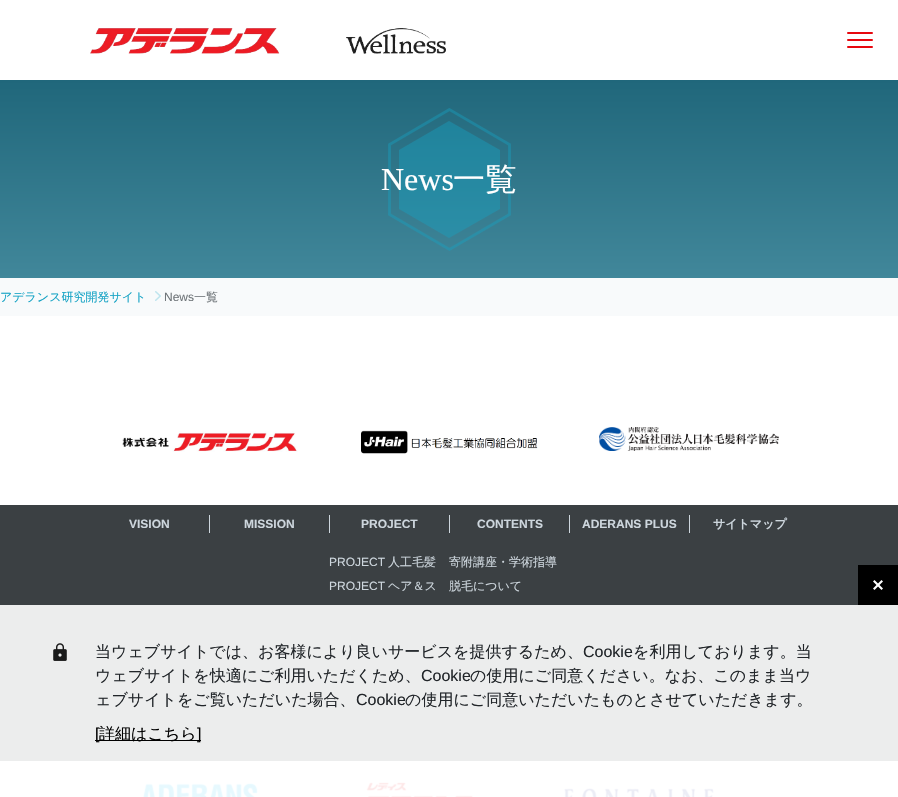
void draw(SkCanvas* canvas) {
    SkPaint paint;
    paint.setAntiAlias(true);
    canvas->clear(0xFFFFFFFF);
    canvas->drawImageRect(SkImages::DeferredFromEncodedData(SkData::MakeFromFileName("img1.png")), SkRect::MakeXYWH(90, 28, 356, 26), SkSamplingOptions());
    paint.setColor(0xFFE7080F);
    canvas->drawRoundRect(SkRect::MakeXYWH(847, 32, 26, 2), 1, 1, paint);
    canvas->drawRoundRect(SkRect::MakeXYWH(847, 39, 26, 2), 1, 1, paint);
    canvas->drawRoundRect(SkRect::MakeXYWH(847, 46, 26, 2), 1, 1, paint);
    {
        const SkColor colors[] = {0xFF20677B, 0xFF41879A};
        const float stops[] = {0, 1};
        const SkPoint ends[] = {{449, 80}, {449, 278}};
        paint.setShader(SkGradientShader::MakeLinear(ends, colors, stops, 2, SkTileMode::kClamp));
        paint.setAlpha(255);
    }
    canvas->drawRect(SkRect::MakeXYWH(0, 80, 898, 198), paint);
    paint.setShader(nullptr);
    paint.setColor(0x6613A2C4);
    canvas->drawPath(SkPathBuilder().moveTo(449, 121).lineTo(399, 150).lineTo(399, 209).lineTo(449, 238).lineTo(500, 209).lineTo(500, 150).close().detach(), paint);
    paint.setStyle(SkPaint::kStroke_Style);
    paint.setStrokeWidth(2.8f);
    canvas->drawPath(SkPathBuilder().moveTo(449.5f, 109.5f).lineTo(389.5f, 144.5f).lineTo(389.5f, 214.5f).lineTo(449.5f, 249.5f).lineTo(509.5f, 214.5f).lineTo(509.5f, 144.5f).close().detach(), paint);
    SkFont font1(fontMgr->matchFamilyStyle("Liberation Serif", SkFontStyle::Normal()), 32);
    font1.setSubpixel(true);
    paint.setStyle(SkPaint::kFill_Style);
    paint.setColor(0xFFFFFFFF);
    canvas->drawString("News", 381, 190, font1, paint);
    SkFont font2(fontMgr->matchFamilyStyle("WenQuanYi Zen Hei", SkFontStyle(500, SkFontStyle::kNormal_Width, SkFontStyle::kUpright_Slant)), 32);
    font2.setSubpixel(true);
    canvas->drawString("一覧", 453, 190, font2, paint);
    paint.setColor(0xFFF8FAFB);
    canvas->drawRect(SkRect::MakeXYWH(0, 278, 898, 38), paint);
    SkFont font3(fontMgr->matchFamilyStyle("WenQuanYi Zen Hei", SkFontStyle(500, SkFontStyle::kNormal_Width, SkFontStyle::kUpright_Slant)), 12);
    font3.setSubpixel(true);
    paint.setColor(0xFF13A2C4);
    canvas->drawString("アデランス研究開発サイト", 0, 301, font3, paint);
    canvas->drawImageRect(SkImages::DeferredFromEncodedData(SkData::MakeFromFileName("img2.png")), SkRect::MakeXYWH(155, 291, 6, 10), SkSamplingOptions());
    SkFont font4(fontMgr->matchFamilyStyle("Liberation Sans", SkFontStyle::Normal()), 12);
    font4.setSubpixel(true);
    paint.setColor(0xFF6F7579);
    canvas->drawString("News", 164, 301, font4, paint);
    canvas->drawString("一覧", 194, 301, font3, paint);
    canvas->drawImageRect(SkImages::DeferredFromEncodedData(SkData::MakeFromFileName("img3.png")), SkRect::MakeXYWH(122, 431, 176, 21), SkSamplingOptions());
    canvas->drawImageRect(SkImages::DeferredFromEncodedData(SkData::MakeFromFileName("img4.png")), SkRect::MakeXYWH(361, 430, 177, 24), SkSamplingOptions());
    canvas->drawImageRect(SkImages::DeferredFromEncodedData(SkData::MakeFromFileName("img5.png")), SkRect::MakeXYWH(599, 427, 180, 24), SkSamplingOptions());
    paint.setColor(0xFF3B4043);
    canvas->drawRect(SkRect::MakeXYWH(0, 505, 898, 256), paint);
    SkFont font5(fontMgr->matchFamilyStyle("Liberation Sans", SkFontStyle::Bold()), 12);
    font5.setSubpixel(true);
    paint.setColor(0xFFCDD6DD);
    canvas->drawString("VISION", 129, 528, font5, paint);
    canvas->drawRect(SkRect::MakeXYWH(209, 515, 1, 18), paint);
    canvas->drawString("MISSION", 244, 528, font5, paint);
    canvas->drawRect(SkRect::MakeXYWH(329, 515, 1, 18), paint);
    canvas->drawString("PROJECT", 361, 528, font5, paint);
    canvas->drawString("PROJECT", 329, 566, font4, paint);
    canvas->drawString("人工毛髪", 388, 566, font3, paint);
    canvas->drawString("PROJECT", 329, 590, font4, paint);
    canvas->drawString("ヘア＆ス", 388, 590, font3, paint);
    canvas->drawRect(SkRect::MakeXYWH(449, 515, 1, 18), paint);
    canvas->drawString("CONTENTS", 477, 528, font5, paint);
    canvas->drawString("寄附講座・学術指導", 449, 566, font3, paint);
    canvas->drawString("脱毛について", 449, 590, font3, paint);
    canvas->drawRect(SkRect::MakeXYWH(569, 515, 1, 18), paint);
    canvas->drawString("ADERANS PLUS", 582, 528, font5, paint);
    canvas->drawRect(SkRect::MakeXYWH(689, 515, 1, 18), paint);
    SkFont font6(fontMgr->matchFamilyStyle("WenQuanYi Zen Hei", SkFontStyle::Bold()), 12);
    font6.setSubpixel(true);
    canvas->drawString("サイトマップ", 713, 528, font6, paint);
    canvas->drawImageRect(SkImages::DeferredFromEncodedData(SkData::MakeFromFileName("img6.png")), SkRect::MakeXYWH(142, 783, 116, 14), SkSamplingOptions());
    canvas->drawImageRect(SkImages::DeferredFromEncodedData(SkData::MakeFromFileName("img7.png")), SkRect::MakeXYWH(366, 782, 108, 15), SkSamplingOptions());
    canvas->drawImageRect(SkImages::DeferredFromEncodedData(SkData::MakeFromFileName("img8.png")), SkRect::MakeXYWH(564, 787, 150, 10), SkSamplingOptions());
    paint.setColor(0xE6FFFFFF);
    canvas->drawRect(SkRect::MakeXYWH(0, 605, 898, 192), paint);
    paint.setColor(0xFF000000);
    canvas->drawRect(SkRect::MakeXYWH(858, 565, 40, 40), paint);
    paint.setColor(0xFFFFFFFF);
    canvas->drawPath(SkPathBuilder().moveTo(881.5f, 580).lineTo(883, 581.5f).lineTo(874.5f, 590).lineTo(873, 588.5f).close().detach(), paint);
    canvas->drawPath(SkPathBuilder().moveTo(873, 581.5f).lineTo(874.5f, 580).lineTo(883, 588.5f).lineTo(881.5f, 590).close().detach(), paint);
    canvas->drawImageRect(SkImages::DeferredFromEncodedData(SkData::MakeFromFileName("img9.png")), SkRect::MakeXYWH(53, 643, 14, 18), SkSamplingOptions());
    SkFont font7(fontMgr->matchFamilyStyle("WenQuanYi Zen Hei", SkFontStyle(500, SkFontStyle::kNormal_Width, SkFontStyle::kUpright_Slant)), 16);
    font7.setSubpixel(true);
    paint.setColor(0xFF212529);
    canvas->drawString("当ウェブサイトでは、お客様により良いサービスを提供するため、", 95, 657, font7, paint);
    SkFont font8(fontMgr->matchFamilyStyle("Liberation Sans", SkFontStyle::Normal()), 16);
    font8.setSubpixel(true);
    canvas->drawString("Cookie", 583, 657, font8, paint);
    canvas->drawString("を利用しております。当", 633, 657, font7, paint);
    canvas->drawString("ウェブサイトを快適にご利用いただくため、", 95, 681, font7, paint);
    canvas->drawString("Cookie", 421, 681, font8, paint);
    canvas->drawString("の使用にご同意ください。なお、このまま当ウ", 470, 681, font7, paint);
    canvas->drawString("ェブサイトをご覧いただいた場合、", 95, 705, font7, paint);
    canvas->drawString("Cookie", 356, 705, font8, paint);
    canvas->drawString("の使用にご同意いただいたものとさせていただきます。", 405, 705, font7, paint);
    paint.setColor(0xFF000000);
    canvas->drawRect(SkRect::MakeXYWH(95, 740, 106, 1), paint);
    canvas->drawString("[", 95, 739, font8, paint);
    canvas->drawString("詳細はこちら", 99, 739, font7, paint);
    canvas->drawString("]", 197, 739, font8, paint);
}
